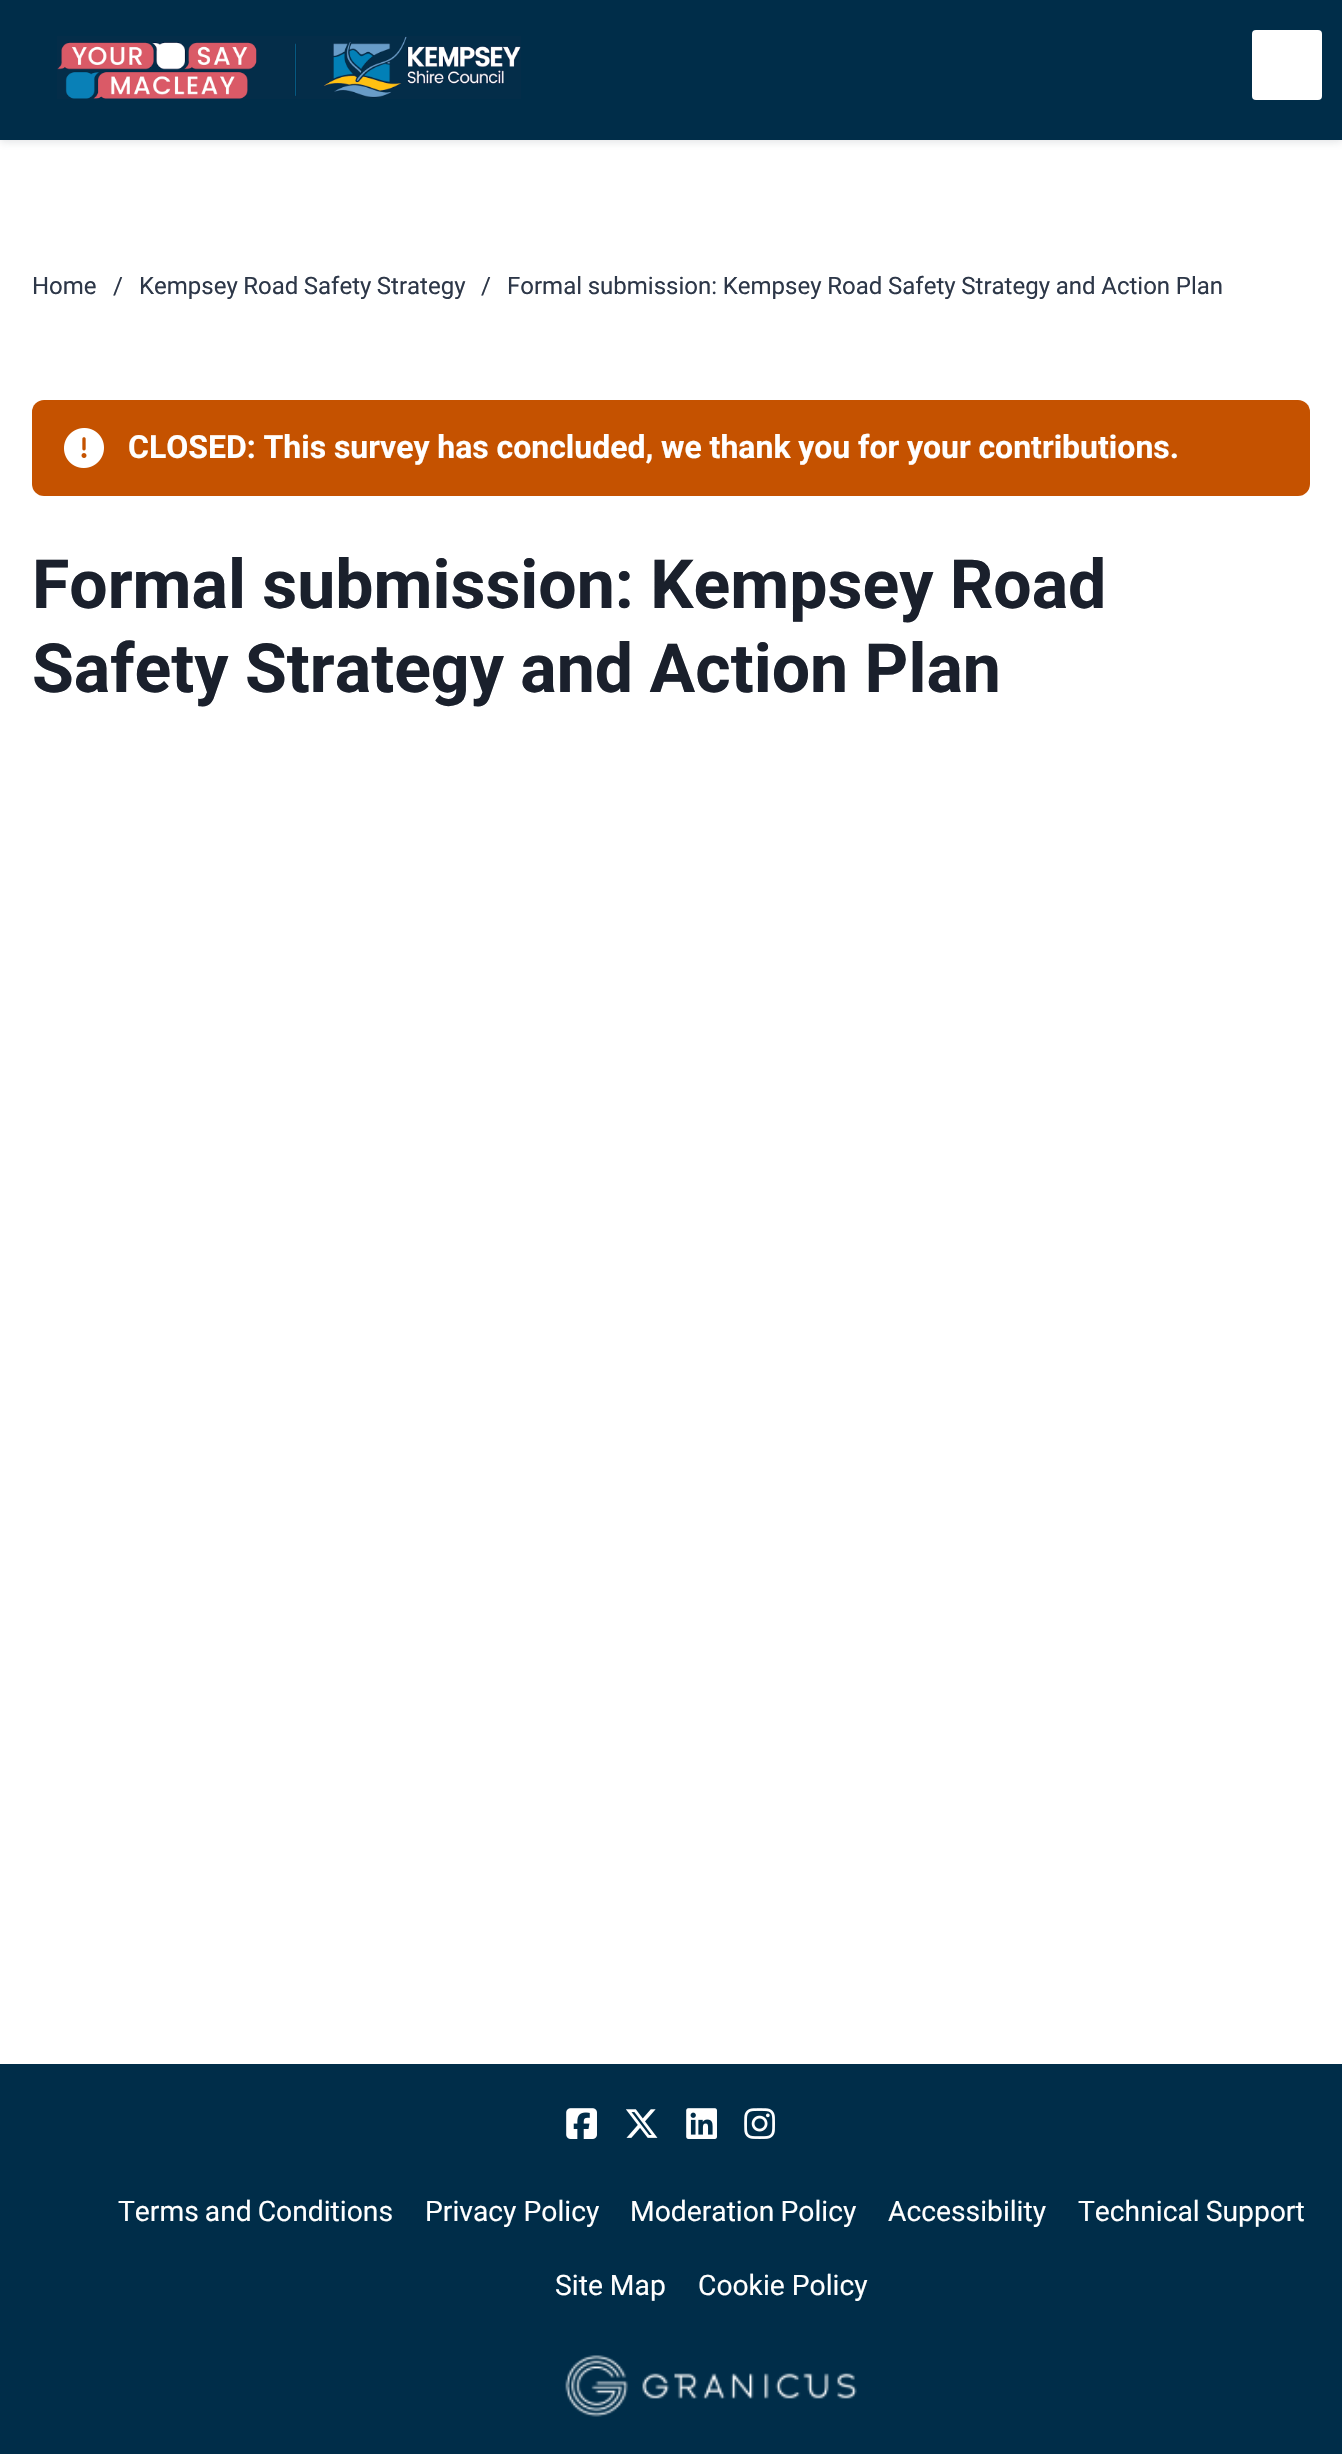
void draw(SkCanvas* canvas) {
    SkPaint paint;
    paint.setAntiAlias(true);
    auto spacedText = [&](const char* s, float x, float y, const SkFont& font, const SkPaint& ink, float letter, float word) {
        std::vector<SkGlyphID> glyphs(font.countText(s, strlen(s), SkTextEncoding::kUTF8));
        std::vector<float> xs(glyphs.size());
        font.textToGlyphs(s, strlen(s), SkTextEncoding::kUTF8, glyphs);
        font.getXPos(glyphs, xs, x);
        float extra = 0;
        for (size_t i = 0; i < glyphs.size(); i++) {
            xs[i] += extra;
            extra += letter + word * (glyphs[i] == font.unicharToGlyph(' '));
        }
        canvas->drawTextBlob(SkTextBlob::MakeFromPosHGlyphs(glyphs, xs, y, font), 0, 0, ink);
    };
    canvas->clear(0xFFFFFFFF);
    paint.setColor(0x3368737D);
    paint.setMaskFilter(SkMaskFilter::MakeBlur(kNormal_SkBlurStyle, 4));
    canvas->drawRect(SkRect::MakeXYWH(0, 2, 1342, 140), paint);
    paint.setMaskFilter(nullptr);
    paint.setColor(0xFF002D49);
    canvas->drawRect(SkRect::MakeXYWH(0, 0, 1342, 140), paint);
    canvas->drawImageRect(SkImages::DeferredFromEncodedData(SkData::MakeFromFileName("img1.png")), SkRect::MakeXYWH(57, 36, 464, 63), SkSamplingOptions());
    paint.setColor(0xFFFFFFFF);
    canvas->drawRoundRect(SkRect::MakeXYWH(1252, 30, 70, 70), 4, 4, paint);
    SkFont font1(fontMgr->matchFamilyStyle("Roboto", SkFontStyle::Normal()), 24);
    font1.setSubpixel(true);
    paint.setColor(0xFF2D3748);
    canvas->drawString("Home", 32, 294, font1, paint);
    canvas->drawString("/", 113, 294, font1, paint);
    spacedText("Kempsey Road Safety Strategy", 139, 294, font1, paint, 0, -0.5f);
    canvas->drawString("/", 481, 294, font1, paint);
    spacedText("Formal submission: Kempsey Road Safety Strategy and Action Plan", 507, 294, font1, paint, 0, -0.25f);
    paint.setColor(0xFFC55200);
    canvas->drawRoundRect(SkRect::MakeXYWH(32, 400, 1278, 96), 12, 12, paint);
    canvas->drawImageRect(SkImages::DeferredFromEncodedData(SkData::MakeFromFileName("img2.png")), SkRect::MakeXYWH(64, 428, 40, 40), SkSamplingOptions());
    SkFont font2(fontMgr->matchFamilyStyle("Roboto", SkFontStyle::Bold()), 32);
    font2.setSubpixel(true);
    paint.setColor(0xFFFFFFFF);
    spacedText("CLOSED: This survey has concluded, we thank you for your contributions.", 128, 458, font2, paint, 0, -0.25f);
    SkFont font3(fontMgr->matchFamilyStyle("Roboto", SkFontStyle::Bold()), 68);
    font3.setSubpixel(true);
    paint.setColor(0xFF1A202C);
    spacedText("Formal submission: Kempsey Road", 32, 608, font3, paint, 0, -0.5f);
    spacedText("Safety Strategy and Action Plan", 32, 692, font3, paint, 0, -0.5f);
    paint.setColor(0xFF002D49);
    canvas->drawRect(SkRect::MakeXYWH(0, 2064, 1342, 390), paint);
    canvas->drawImageRect(SkImages::DeferredFromEncodedData(SkData::MakeFromFileName("img3.png")), SkRect::MakeXYWH(566, 2108, 31, 31), SkSamplingOptions());
    canvas->drawImageRect(SkImages::DeferredFromEncodedData(SkData::MakeFromFileName("img4.png")), SkRect::MakeXYWH(626, 2109, 32, 29), SkSamplingOptions());
    canvas->drawImageRect(SkImages::DeferredFromEncodedData(SkData::MakeFromFileName("img5.png")), SkRect::MakeXYWH(686, 2108, 31, 31), SkSamplingOptions());
    canvas->drawImageRect(SkImages::DeferredFromEncodedData(SkData::MakeFromFileName("img6.png")), SkRect::MakeXYWH(744, 2108, 31, 31), SkSamplingOptions());
    SkFont font4(fontMgr->matchFamilyStyle("Roboto", SkFontStyle::Normal()), 28.25f);
    font4.setSubpixel(true);
    paint.setColor(0xFFFFFFFF);
    spacedText("Terms and Conditions", 118, 2221, font4, paint, 0, -1);
    canvas->drawString("Privacy Policy", 425, 2221, font4, paint);
    spacedText("Moderation Policy", 630, 2221, font4, paint, 0, -1);
    canvas->drawString("Accessibility", 888, 2221, font4, paint);
    spacedText("Technical Support", 1078, 2221, font4, paint, 0, -1);
    canvas->drawString("Site Map", 555, 2295, font4, paint);
    canvas->drawString("Cookie Policy", 698, 2295, font4, paint);
    canvas->drawImageRect(SkImages::DeferredFromEncodedData(SkData::MakeFromFileName("img7.png")), SkRect::MakeXYWH(565, 2355, 292, 62), SkSamplingOptions());
}
